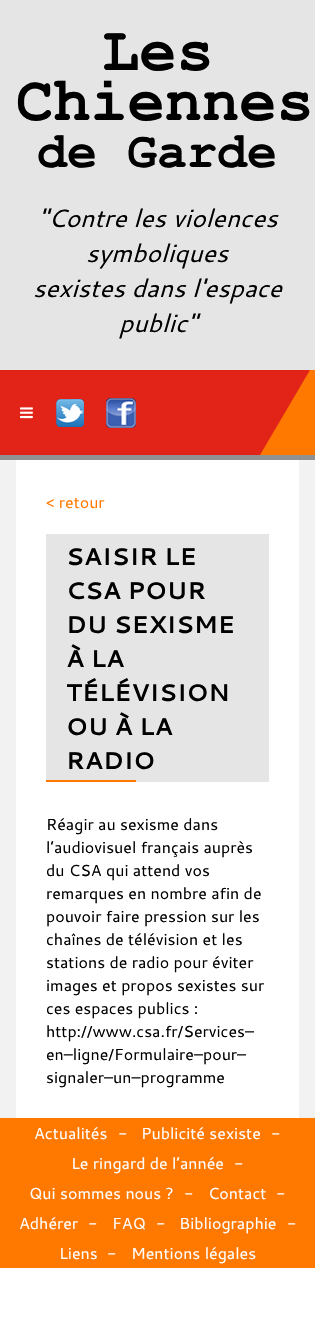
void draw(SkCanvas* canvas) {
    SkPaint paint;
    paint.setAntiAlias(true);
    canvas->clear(0xFFFFFFFF);
    paint.setColor(0xFFE5E5E5);
    canvas->drawRect(SkRect::MakeXYWH(0, 0, 315, 370), paint);
    SkFont font1(fontMgr->matchFamilyStyle("Courier New", SkFontStyle::Bold()), 62);
    font1.setSubpixel(true);
    paint.setColor(0xFF000000);
    canvas->drawString("Les", 102, 70, font1, paint);
    canvas->drawString("Chiennes", 16, 120, font1, paint);
    SkFont font2(fontMgr->matchFamilyStyle("Courier New", SkFontStyle::Bold()), 50);
    font2.setSubpixel(true);
    canvas->drawString("de Garde", 37, 167, font2, paint);
    SkFont font3(fontMgr->matchFamilyStyle("Cantarell", SkFontStyle::Italic()), 25);
    font3.setSubpixel(true);
    canvas->drawString("\"Contre les violences", 38, 227, font3, paint);
    canvas->drawString("symboliques", 86, 262, font3, paint);
    canvas->drawString("sexistes dans l'espace", 33, 297, font3, paint);
    canvas->drawString("public\"", 119, 332, font3, paint);
    paint.setColor(0xFFFF7800);
    canvas->drawRect(SkRect::MakeXYWH(260, 370, 55, 85), paint);
    paint.setColor(0xFF919191);
    canvas->drawRect(SkRect::MakeXYWH(0, 455, 315, 5), paint);
    paint.setColor(0xFFE22418);
    canvas->drawPath(SkPathBuilder().moveTo(-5, 370).lineTo(310, 370).lineTo(260, 455).lineTo(-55, 455).close().detach(), paint);
    canvas->drawImageRect(SkImages::DeferredFromEncodedData(SkData::MakeFromFileName("img1.png")), SkRect::MakeXYWH(20, 407, 13, 12), SkSamplingOptions());
    canvas->drawImageRect(SkImages::DeferredFromEncodedData(SkData::MakeFromFileName("img2.png")), SkRect::MakeXYWH(56, 399, 28, 28), SkSamplingOptions());
    canvas->drawImageRect(SkImages::DeferredFromEncodedData(SkData::MakeFromFileName("img3.png")), SkRect::MakeXYWH(106, 398, 30, 30), SkSamplingOptions());
    paint.setColor(0xFFF2F2F2);
    canvas->drawRect(SkRect::MakeXYWH(0, 460, 315, 658), paint);
    paint.setColor(0xFFFFFFFF);
    canvas->drawRect(SkRect::MakeXYWH(16, 460, 283, 658), paint);
    SkFont font4(fontMgr->matchFamilyStyle("Cantarell", SkFontStyle::Normal()), 16);
    font4.setSubpixel(true);
    paint.setColor(0xFFFF7800);
    canvas->drawString("< retour", 46, 508, font4, paint);
    paint.setColor(0xFFE5E5E5);
    canvas->drawRect(SkRect::MakeXYWH(46, 534, 223, 248), paint);
    SkFont font5(fontMgr->matchFamilyStyle("Cantarell", SkFontStyle::Bold()), 24);
    font5.setSubpixel(true);
    paint.setColor(0xFF000000);
    canvas->drawString("SAISIR LE", 66, 565, font5, paint);
    canvas->drawString("CSA POUR", 66, 599, font5, paint);
    canvas->drawString("DU SEXISME", 66, 633, font5, paint);
    canvas->drawString("À LA", 66, 667, font5, paint);
    canvas->drawString("TÉLÉVISION", 66, 701, font5, paint);
    canvas->drawString("OU À LA", 66, 735, font5, paint);
    canvas->drawString("RADIO", 66, 769, font5, paint);
    paint.setColor(0xFFFF7800);
    canvas->drawRect(SkRect::MakeXYWH(46, 780, 90, 2), paint);
    paint.setColor(0xFF000000);
    canvas->drawString("Réagir au sexisme dans", 46, 830, font4, paint);
    canvas->drawString("l’audiovisuel français auprès", 46, 853, font4, paint);
    canvas->drawString("du CSA qui attend vos", 46, 876, font4, paint);
    canvas->drawString("remarques en nombre afin de", 46, 899, font4, paint);
    canvas->drawString("pouvoir faire pression sur les", 46, 922, font4, paint);
    canvas->drawString("chaînes de télévision et les", 46, 945, font4, paint);
    canvas->drawString("stations de radio pour éviter", 46, 968, font4, paint);
    canvas->drawString("images et propos sexistes sur", 46, 991, font4, paint);
    canvas->drawString("ces espaces publics :", 46, 1014, font4, paint);
    canvas->drawString("http://www.csa.fr/Services–", 46, 1037, font4, paint);
    canvas->drawString("en–ligne/Formulaire–pour–", 46, 1060, font4, paint);
    canvas->drawString("signaler–un–programme", 46, 1083, font4, paint);
    paint.setColor(0xFFFF7800);
    canvas->drawRect(SkRect::MakeXYWH(0, 1118, 315, 150), paint);
    paint.setColor(0xFFFFFFFF);
    canvas->drawString("Actualités", 34, 1139, font4, paint);
    canvas->drawString("-", 118, 1139, font4, paint);
    canvas->drawString("Publicité sexiste", 141, 1139, font4, paint);
    canvas->drawString("-", 271, 1139, font4, paint);
    canvas->drawString("Le ringard de l’année", 71, 1169, font4, paint);
    canvas->drawString("-", 234, 1169, font4, paint);
    canvas->drawString("Qui sommes nous ?", 29, 1199, font4, paint);
    canvas->drawString("-", 184, 1199, font4, paint);
    canvas->drawString("Contact", 208, 1199, font4, paint);
    canvas->drawString("-", 276, 1199, font4, paint);
    canvas->drawString("Adhérer", 19, 1229, font4, paint);
    canvas->drawString("-", 88, 1229, font4, paint);
    canvas->drawString("FAQ", 112, 1229, font4, paint);
    canvas->drawString("-", 156, 1229, font4, paint);
    canvas->drawString("Bibliographie", 179, 1229, font4, paint);
    canvas->drawString("-", 287, 1229, font4, paint);
    canvas->drawString("Liens", 59, 1259, font4, paint);
    canvas->drawString("-", 107, 1259, font4, paint);
    canvas->drawString("Mentions légales", 131, 1259, font4, paint);
}
